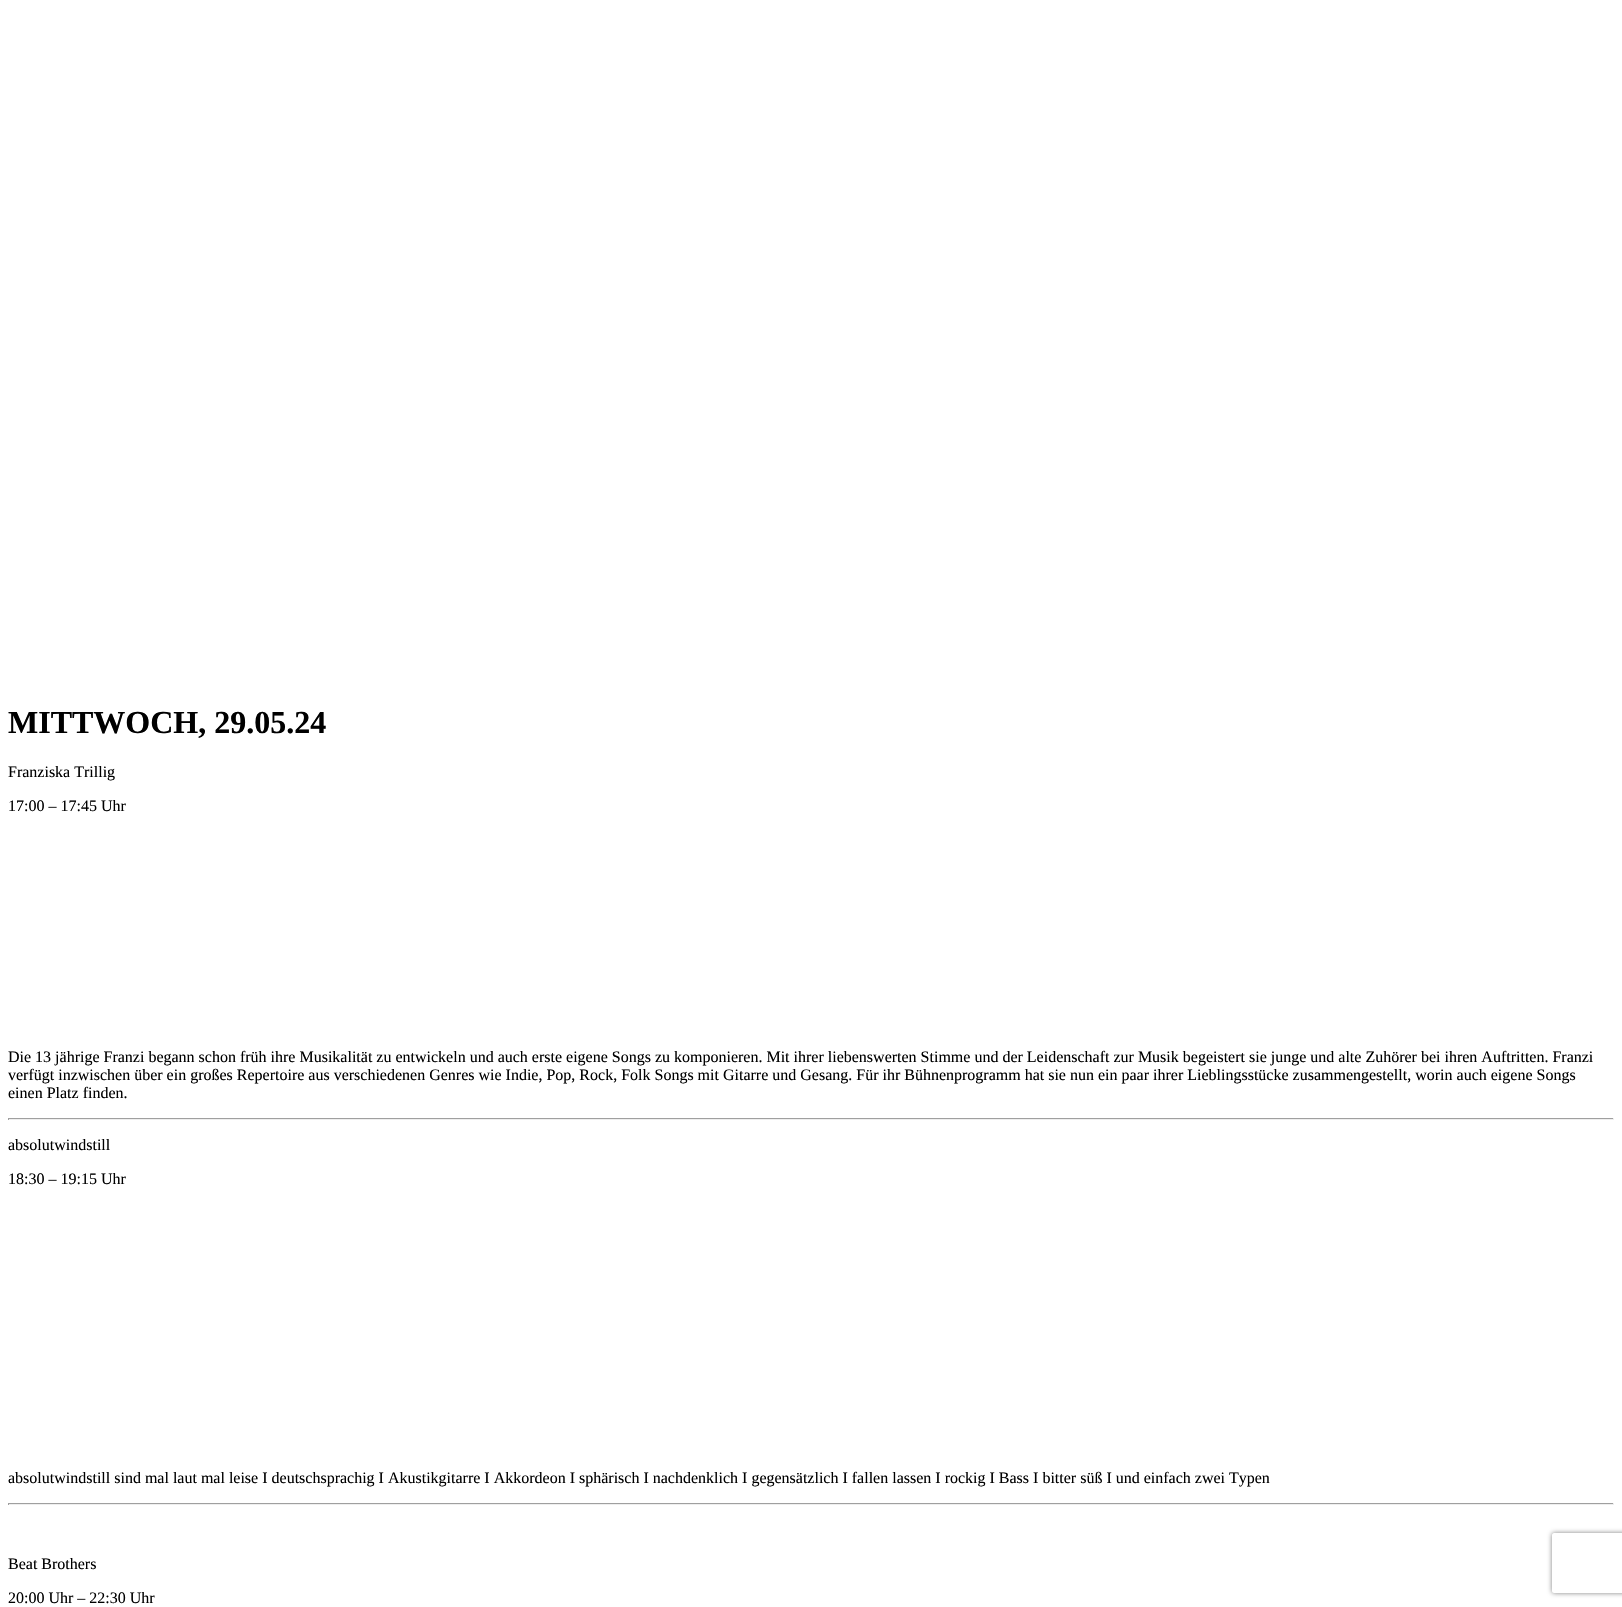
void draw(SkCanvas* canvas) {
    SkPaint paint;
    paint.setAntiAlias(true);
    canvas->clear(0xFFFFFFFF);
    SkFont font1(fontMgr->matchFamilyStyle("Liberation Serif", SkFontStyle::Bold()), 32);
    font1.setSubpixel(true);
    paint.setColor(0xFF000000);
    canvas->drawString("MITTWOCH, 29.05.24", 8, 733, font1, paint);
    SkFont font2(fontMgr->matchFamilyStyle("Liberation Serif", SkFontStyle::Normal()), 16);
    font2.setSubpixel(true);
    canvas->drawString("Franziska Trillig", 8, 777, font2, paint);
    canvas->drawString("17:00 – 17:45 Uhr", 8, 811, font2, paint);
    canvas->drawString("Die 13 jährige Franzi begann schon früh ihre Musikalität zu entwickeln und auch erste eigene Songs zu komponieren. Mit ihrer liebenswerten Stimme und der Leidenschaft zur Musik begeistert sie junge und alte Zuhörer bei ihren Auftritten. Franzi", 8, 1062, font2, paint);
    canvas->drawString("verfügt inzwischen über ein großes Repertoire aus verschiedenen Genres wie Indie, Pop, Rock, Folk Songs mit Gitarre und Gesang. Für ihr Bühnenprogramm hat sie nun ein paar ihrer Lieblingsstücke zusammengestellt, worin auch eigene Songs", 8, 1080, font2, paint);
    canvas->drawString("einen Platz finden.", 8, 1098, font2, paint);
    paint.setColor(0xFF9F9F9F);
    canvas->drawRect(SkRect::MakeXYWH(8, 1118, 1606, 1), paint);
    paint.setColor(0xFFEEEEEE);
    canvas->drawRect(SkRect::MakeXYWH(1613, 1118, 1, 2), paint);
    canvas->drawRect(SkRect::MakeXYWH(8, 1119, 1606, 1), paint);
    paint.setColor(0xFF9F9F9F);
    canvas->drawRect(SkRect::MakeXYWH(8, 1118, 1, 2), paint);
    paint.setColor(0xFF000000);
    canvas->drawString("absolutwindstill", 8, 1150, font2, paint);
    canvas->drawString("18:30 – 19:15 Uhr", 8, 1184, font2, paint);
    canvas->drawString("absolutwindstill sind mal laut mal leise I deutschsprachig I Akustikgitarre I Akkordeon I sphärisch I nachdenklich I gegensätzlich I fallen lassen I rockig I Bass I bitter süß I und einfach zwei Typen", 8, 1483, font2, paint);
    paint.setColor(0xFF9F9F9F);
    canvas->drawRect(SkRect::MakeXYWH(8, 1503, 1606, 1), paint);
    paint.setColor(0xFFEEEEEE);
    canvas->drawRect(SkRect::MakeXYWH(1613, 1503, 1, 2), paint);
    canvas->drawRect(SkRect::MakeXYWH(8, 1504, 1606, 1), paint);
    paint.setColor(0xFF9F9F9F);
    canvas->drawRect(SkRect::MakeXYWH(8, 1503, 1, 2), paint);
    paint.setColor(0xFF000000);
    canvas->drawString("Beat Brothers", 8, 1569, font2, paint);
    canvas->drawString("20:00 Uhr – 22:30 Uhr", 8, 1603, font2, paint);
    canvas->save();
    canvas->clipPath(SkPathBuilder(SkPathFillType::kEvenOdd).moveTo(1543, 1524).lineTo(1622, 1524).lineTo(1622, 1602).lineTo(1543, 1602).close().moveTo(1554, 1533).lineTo(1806, 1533).cubicTo(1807, 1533, 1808, 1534, 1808, 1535).lineTo(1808, 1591).cubicTo(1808, 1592, 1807, 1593, 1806, 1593).lineTo(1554, 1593).cubicTo(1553, 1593, 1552, 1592, 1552, 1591).lineTo(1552, 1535).cubicTo(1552, 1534, 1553, 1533, 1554, 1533).close().detach(), true);
    paint.setColor(0xFF808080);
    paint.setMaskFilter(SkMaskFilter::MakeBlur(kNormal_SkBlurStyle, 2.5f));
    canvas->drawRoundRect(SkRect::MakeXYWH(1552, 1533, 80, 60), 2, 2, paint);
    paint.setMaskFilter(nullptr);
    canvas->restore();
}
